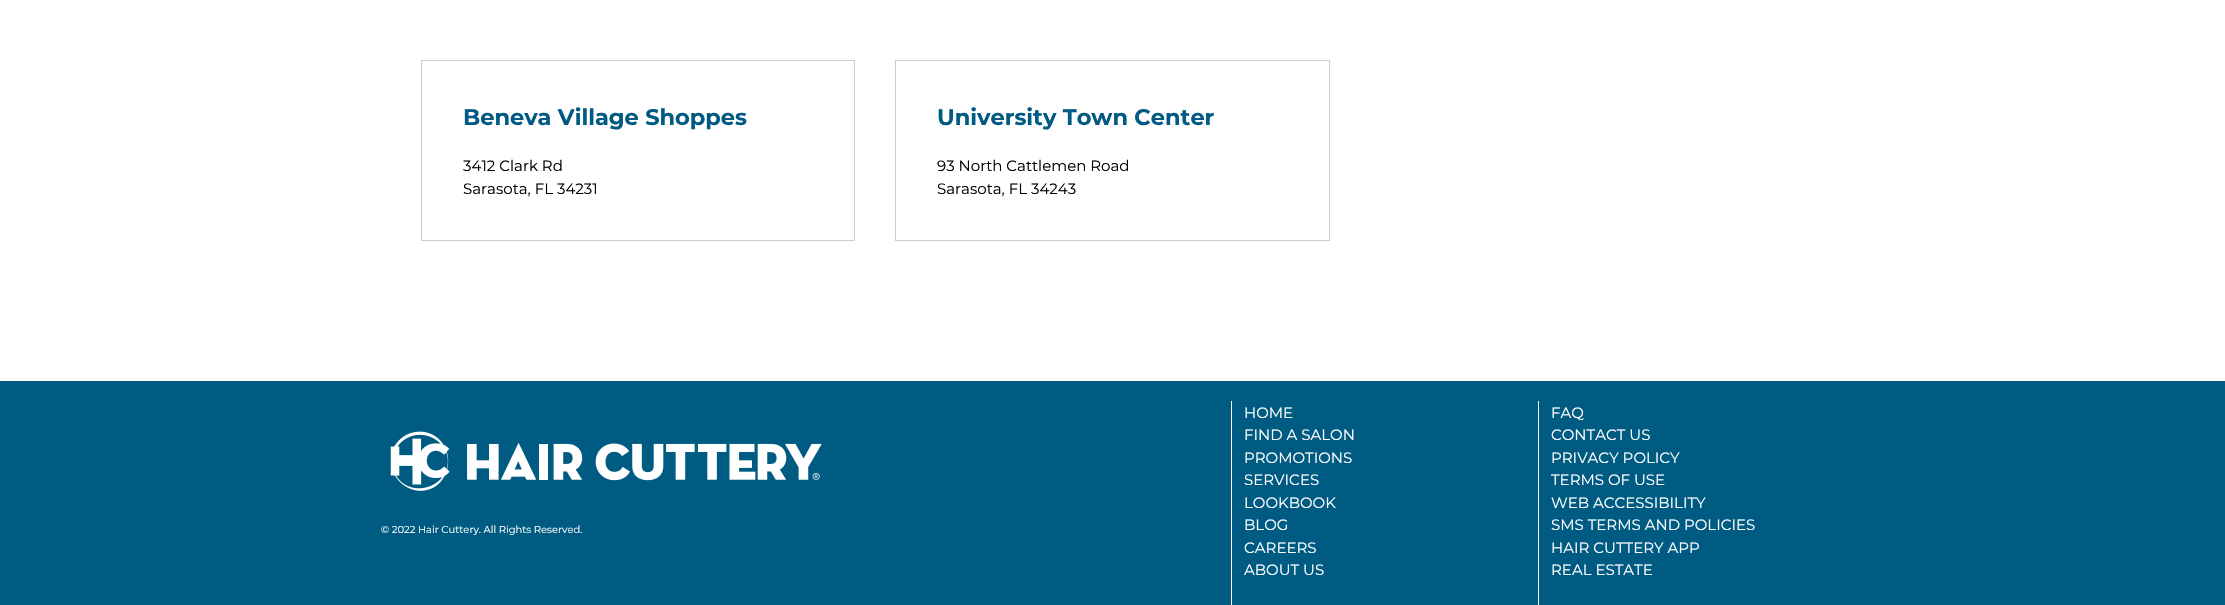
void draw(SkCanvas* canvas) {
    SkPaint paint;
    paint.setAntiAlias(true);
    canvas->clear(0xFFFFFFFF);
    paint.setStyle(SkPaint::kStroke_Style);
    paint.setStrokeWidth(1);
    paint.setColor(0xFFCCCCCC);
    canvas->drawRect(SkRect::MakeXYWH(421.5f, 60.5f, 433, 180), paint);
    SkFont font1(fontMgr->matchFamilyStyle("Montserrat", SkFontStyle::Bold()), 22.5f);
    font1.setSubpixel(true);
    paint.setStyle(SkPaint::kFill_Style);
    paint.setColor(0xFF005A83);
    canvas->drawString("Beneva Village Shoppes", 463, 125, font1, paint);
    SkFont font2(fontMgr->matchFamilyStyle("Montserrat", SkFontStyle::Normal()), 15);
    font2.setSubpixel(true);
    paint.setColor(0xFF000000);
    canvas->drawString("3412 Clark Rd", 463, 171, font2, paint);
    canvas->drawString("Sarasota, FL 34231", 463, 194, font2, paint);
    paint.setStyle(SkPaint::kStroke_Style);
    paint.setColor(0xFFCCCCCC);
    canvas->drawRect(SkRect::MakeXYWH(895.5f, 60.5f, 434, 180), paint);
    paint.setStyle(SkPaint::kFill_Style);
    paint.setColor(0xFF005A83);
    canvas->drawString("University Town Center", 937, 125, font1, paint);
    paint.setColor(0xFF000000);
    canvas->drawString("93 North Cattlemen Road", 937, 171, font2, paint);
    canvas->drawString("Sarasota, FL 34243", 937, 194, font2, paint);
    paint.setColor(0xFF005B83);
    canvas->drawRect(SkRect::MakeXYWH(0, 381, 2225, 224), paint);
    canvas->drawImageRect(SkImages::DeferredFromEncodedData(SkData::MakeFromFileName("img1.png")), SkRect::MakeXYWH(390, 431, 432, 60), SkSamplingOptions());
    SkFont font3(fontMgr->matchFamilyStyle("Montserrat", SkFontStyle::Normal()), 10);
    font3.setSubpixel(true);
    paint.setColor(0xFFFFFFFF);
    canvas->drawString("© 2022 Hair Cuttery. All Rights Reserved.", 381, 533, font3, paint);
    canvas->drawRect(SkRect::MakeXYWH(1231, 401, 1, 204), paint);
    canvas->drawString("HOME", 1244, 418, font2, paint);
    canvas->drawString("FIND A SALON", 1244, 440, font2, paint);
    canvas->drawString("PROMOTIONS", 1244, 463, font2, paint);
    canvas->drawString("SERVICES", 1244, 485, font2, paint);
    canvas->drawString("LOOKBOOK", 1244, 508, font2, paint);
    canvas->drawString("BLOG", 1244, 530, font2, paint);
    canvas->drawString("CAREERS", 1244, 553, font2, paint);
    canvas->drawString("ABOUT US", 1244, 575, font2, paint);
    canvas->drawRect(SkRect::MakeXYWH(1538, 401, 1, 204), paint);
    canvas->drawString("FAQ", 1551, 418, font2, paint);
    canvas->drawString("CONTACT US", 1551, 440, font2, paint);
    canvas->drawString("PRIVACY POLICY", 1551, 463, font2, paint);
    canvas->drawString("TERMS OF USE", 1551, 485, font2, paint);
    canvas->drawString("WEB ACCESSIBILITY", 1551, 508, font2, paint);
    canvas->drawString("SMS TERMS AND POLICIES", 1551, 530, font2, paint);
    canvas->drawString("HAIR CUTTERY APP", 1551, 553, font2, paint);
    canvas->drawString("REAL ESTATE", 1551, 575, font2, paint);
}
